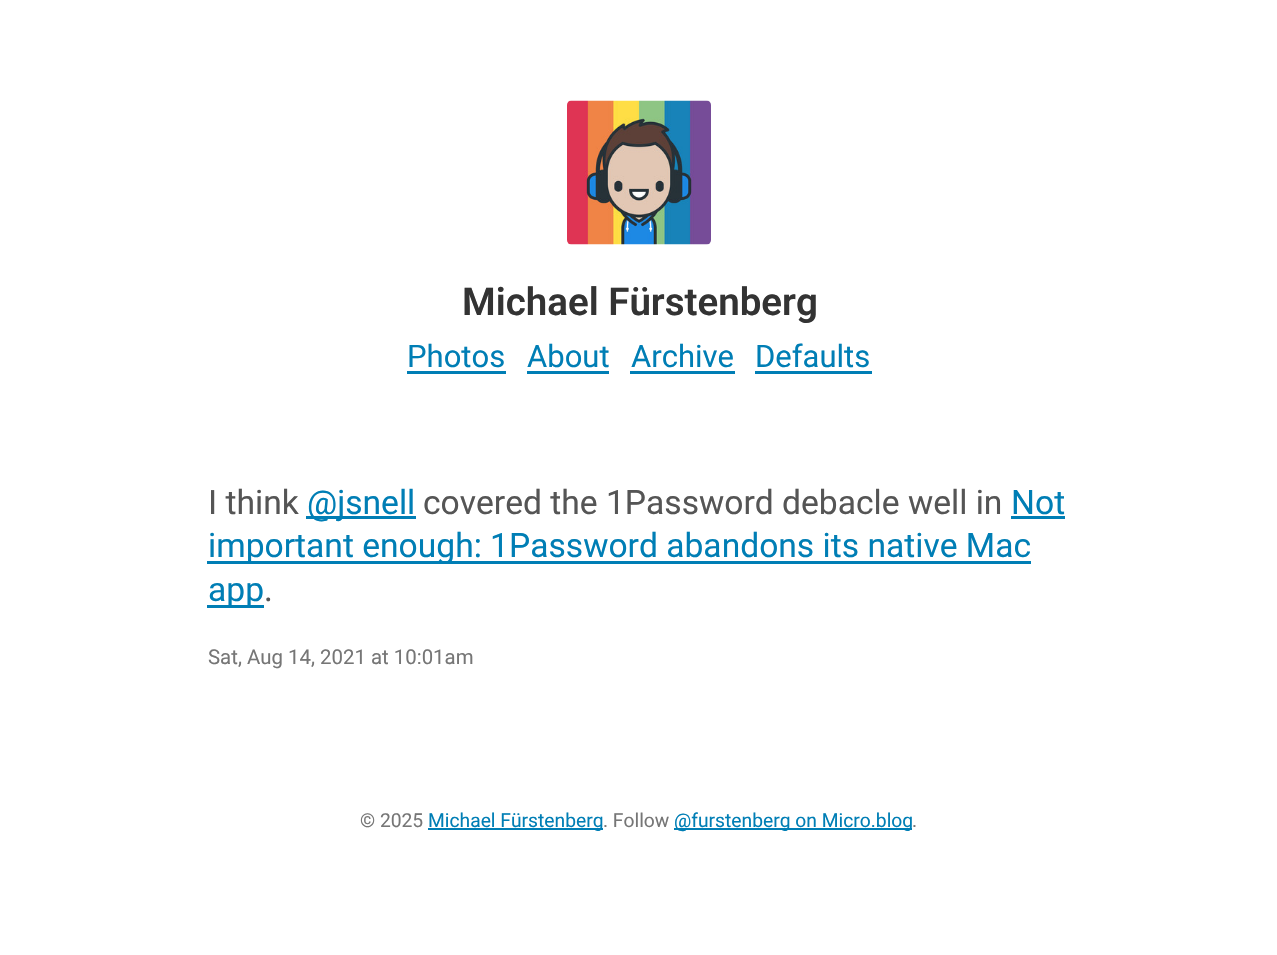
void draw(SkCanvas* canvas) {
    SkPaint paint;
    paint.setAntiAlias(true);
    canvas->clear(0xFFFFFFFF);
    canvas->drawImageRect(SkImages::DeferredFromEncodedData(SkData::MakeFromFileName("img1.png")), SkRect::MakeXYWH(567, 100, 144, 145), SkSamplingOptions());
    SkFont font1(fontMgr->matchFamilyStyle("Roboto", SkFontStyle(600, SkFontStyle::kNormal_Width, SkFontStyle::kUpright_Slant)), 38.5f);
    font1.setSubpixel(true);
    paint.setColor(0xFF333333);
    canvas->drawString("Michael Fürstenberg", 462, 315, font1, paint);
    SkFont font2(fontMgr->matchFamilyStyle("Roboto", SkFontStyle::Normal()), 31);
    font2.setSubpixel(true);
    paint.setColor(0xFF007EB5);
    canvas->drawString("Photos", 407, 367, font2, paint);
    canvas->drawRect(SkRect::MakeXYWH(407, 371, 99, 3), paint);
    canvas->drawString("About", 527, 367, font2, paint);
    canvas->drawRect(SkRect::MakeXYWH(527, 371, 82, 3), paint);
    canvas->drawString("Archive", 631, 367, font2, paint);
    canvas->drawRect(SkRect::MakeXYWH(630, 371, 105, 3), paint);
    canvas->drawString("Defaults", 755, 367, font2, paint);
    canvas->drawRect(SkRect::MakeXYWH(755, 371, 117, 3), paint);
    SkFont font3(fontMgr->matchFamilyStyle("Roboto", SkFontStyle::Normal()), 33.6f);
    font3.setSubpixel(true);
    paint.setColor(0xFF555555);
    canvas->drawString("I think", 208, 514, font3, paint);
    paint.setColor(0xFF007EB5);
    canvas->drawRect(SkRect::MakeXYWH(306, 516, 110, 3), paint);
    canvas->drawString("@jsnell", 307, 514, font3, paint);
    paint.setColor(0xFF555555);
    canvas->drawString("covered the 1Password debacle well in", 423, 514, font3, paint);
    paint.setColor(0xFF007EB5);
    canvas->drawString("Not", 1011, 514, font3, paint);
    canvas->drawRect(SkRect::MakeXYWH(1011, 516, 54, 3), paint);
    canvas->drawRect(SkRect::MakeXYWH(207, 561, 824, 3), paint);
    canvas->drawString("important enough: 1Password abandons its native Mac", 208, 557, font3, paint);
    canvas->drawRect(SkRect::MakeXYWH(207, 605, 57, 3), paint);
    canvas->drawString("app", 208, 601, font3, paint);
    paint.setColor(0xFF555555);
    canvas->drawString(".", 264, 601, font3, paint);
    SkFont font4(fontMgr->matchFamilyStyle("Roboto", SkFontStyle::Normal()), 20.4f);
    font4.setSubpixel(true);
    paint.setColor(0xFF767676);
    canvas->drawString("Sat, Aug 14, 2021 at 10:01am", 208, 664, font4, paint);
    SkFont font5(fontMgr->matchFamilyStyle("Roboto", SkFontStyle::Normal()), 19.25f);
    font5.setSubpixel(true);
    canvas->drawString("© 2025", 360, 827, font5, paint);
    paint.setColor(0xFF007EB5);
    canvas->drawRect(SkRect::MakeXYWH(428, 828, 175, 2), paint);
    canvas->drawString("Michael Fürstenberg", 428, 827, font5, paint);
    paint.setColor(0xFF767676);
    canvas->drawString(". Follow", 603, 827, font5, paint);
    paint.setColor(0xFF007EB5);
    canvas->drawRect(SkRect::MakeXYWH(674, 828, 238, 2), paint);
    canvas->drawString("@furstenberg on Micro.blog", 674, 827, font5, paint);
    paint.setColor(0xFF767676);
    canvas->drawString(".", 912, 827, font5, paint);
}
